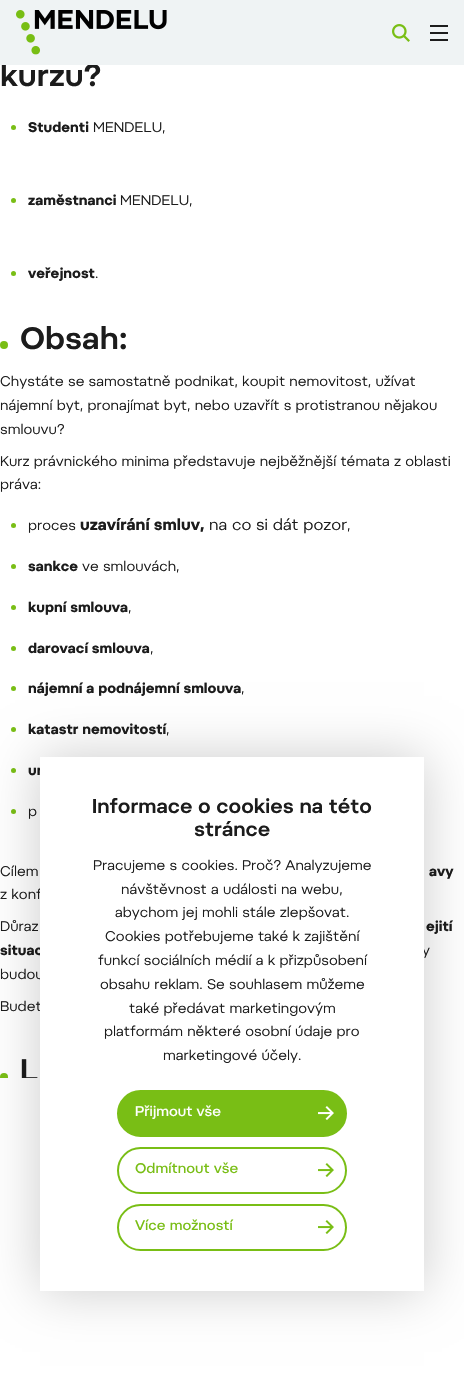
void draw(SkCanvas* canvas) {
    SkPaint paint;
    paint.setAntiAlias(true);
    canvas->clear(0xFFFFFFFF);
    SkFont font1(fontMgr->matchFamilyStyle("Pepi", SkFontStyle(600, SkFontStyle::kNormal_Width, SkFontStyle::kUpright_Slant)), 31);
    font1.setSubpixel(true);
    paint.setColor(0xFF1C1C1C);
    canvas->drawString("kurzu?", 0, 86, font1, paint);
    paint.setColor(0xFFEFF3F4);
    canvas->drawRect(SkRect::MakeXYWH(0, 0, 464, 65), paint);
    canvas->drawImageRect(SkImages::DeferredFromEncodedData(SkData::MakeFromFileName("img1.png")), SkRect::MakeXYWH(16, 10, 151, 45), SkSamplingOptions());
    canvas->drawImageRect(SkImages::DeferredFromEncodedData(SkData::MakeFromFileName("img2.png")), SkRect::MakeXYWH(392, 24, 18, 18), SkSamplingOptions());
    paint.setColor(0xFF1C1C1C);
    canvas->drawRect(SkRect::MakeXYWH(430, 25, 18, 2), paint);
    canvas->drawRect(SkRect::MakeXYWH(430, 32, 18, 2), paint);
    canvas->drawRect(SkRect::MakeXYWH(430, 39, 18, 2), paint);
    paint.setColor(0xFF79BE15);
    canvas->drawCircle(13.5f, 127.5f, 2.5f, paint);
    SkFont font2(fontMgr->matchFamilyStyle("Pepi", SkFontStyle::Bold()), 14);
    font2.setSubpixel(true);
    paint.setColor(0xFF1C1C1C);
    canvas->drawString("Studenti", 28, 132, font2, paint);
    SkFont font3(fontMgr->matchFamilyStyle("Pepi", SkFontStyle::Normal()), 14);
    font3.setSubpixel(true);
    canvas->drawString("MENDELU,", 93, 132, font3, paint);
    paint.setColor(0xFF79BE15);
    canvas->drawCircle(13.5f, 200.5f, 2.5f, paint);
    paint.setColor(0xFF1C1C1C);
    canvas->drawString("zaměstnanci", 28, 205, font2, paint);
    canvas->drawString("MENDELU,", 120, 205, font3, paint);
    paint.setColor(0xFF79BE15);
    canvas->drawCircle(13.5f, 273.5f, 2.5f, paint);
    paint.setColor(0xFF1C1C1C);
    canvas->drawString("veřejnost", 28, 278, font2, paint);
    canvas->drawString(".", 95, 278, font3, paint);
    paint.setColor(0xFF79BE15);
    canvas->drawCircle(4, 345, 4, paint);
    paint.setColor(0xFF1C1C1C);
    canvas->drawString("Obsah:", 20, 349, font1, paint);
    canvas->drawString("Chystáte se samostatně podnikat, koupit nemovitost, užívat", 0, 386, font3, paint);
    canvas->drawString("nájemní byt, pronajímat byt, nebo uzavřít s protistranou nějakou", 0, 410, font3, paint);
    canvas->drawString("smlouvu?", 0, 434, font3, paint);
    canvas->drawString("Kurz právnického minima představuje nejběžnější témata z oblasti", 0, 466, font3, paint);
    canvas->drawString("práva:", 0, 489, font3, paint);
    paint.setColor(0xFF79BE15);
    canvas->drawCircle(13.5f, 525.5f, 2.5f, paint);
    paint.setColor(0xFF1C1C1C);
    canvas->drawString("proces", 28, 530, font3, paint);
    SkFont font4(fontMgr->matchFamilyStyle("Pepi", SkFontStyle::Bold()), 15.75f);
    font4.setSubpixel(true);
    canvas->drawString("uzavírání smluv,", 80, 530, font4, paint);
    SkFont font5(fontMgr->matchFamilyStyle("Pepi", SkFontStyle::Normal()), 15.75f);
    font5.setSubpixel(true);
    canvas->drawString("na co si dát pozor", 209, 530, font5, paint);
    canvas->drawString(",", 347, 530, font3, paint);
    paint.setColor(0xFF79BE15);
    canvas->drawCircle(13.5f, 566.5f, 2.5f, paint);
    paint.setColor(0xFF1C1C1C);
    canvas->drawString("sankce", 28, 571, font2, paint);
    canvas->drawString("ve smlouvách,", 82, 571, font3, paint);
    paint.setColor(0xFF79BE15);
    canvas->drawCircle(13.5f, 607.5f, 2.5f, paint);
    paint.setColor(0xFF1C1C1C);
    canvas->drawString("kupní smlouva", 28, 612, font2, paint);
    canvas->drawString(",", 128, 612, font3, paint);
    paint.setColor(0xFF79BE15);
    canvas->drawCircle(13.5f, 648.5f, 2.5f, paint);
    paint.setColor(0xFF1C1C1C);
    canvas->drawString("darovací smlouva", 28, 653, font2, paint);
    canvas->drawString(",", 150, 653, font3, paint);
    paint.setColor(0xFF79BE15);
    canvas->drawCircle(13.5f, 688.5f, 2.5f, paint);
    paint.setColor(0xFF1C1C1C);
    canvas->drawString("nájemní a podnájemní smlouva", 28, 693, font2, paint);
    canvas->drawString(",", 241, 693, font3, paint);
    paint.setColor(0xFF79BE15);
    canvas->drawCircle(13.5f, 729.5f, 2.5f, paint);
    paint.setColor(0xFF1C1C1C);
    canvas->drawString("katastr nemovitostí", 28, 734, font2, paint);
    canvas->drawString(",", 166, 734, font3, paint);
    paint.setColor(0xFF79BE15);
    canvas->drawCircle(13.5f, 770.5f, 2.5f, paint);
    paint.setColor(0xFF1C1C1C);
    canvas->drawString("ur", 28, 775, font2, paint);
    paint.setColor(0xFF79BE15);
    canvas->drawCircle(13.5f, 811.5f, 2.5f, paint);
    paint.setColor(0xFF1C1C1C);
    canvas->drawString("p", 28, 816, font3, paint);
    canvas->drawString("Cílem", 0, 876, font3, paint);
    canvas->drawString("avy", 429, 876, font2, paint);
    canvas->drawString("z konf", 0, 899, font3, paint);
    canvas->drawString("Důraz", 0, 931, font3, paint);
    canvas->drawString("ejití", 426, 931, font2, paint);
    canvas->drawString("situac", 0, 955, font2, paint);
    canvas->drawString("y", 422, 955, font3, paint);
    canvas->drawString("budou", 0, 979, font3, paint);
    canvas->drawString("Budet", 0, 1011, font3, paint);
    canvas->save();
    canvas->clipRect(SkRect::MakeXYWH(0, 1073, 8, 5));
    paint.setColor(0xFF79BE15);
    canvas->drawCircle(4, 1077, 4, paint);
    canvas->restore();
    canvas->save();
    canvas->clipRect(SkRect::MakeXYWH(0, 0, 464, 1078));
    paint.setColor(0xFF1C1C1C);
    canvas->drawString("L", 20, 1081, font1, paint);
    canvas->restore();
    paint.setColor(0x33000000);
    paint.setMaskFilter(SkMaskFilter::MakeBlur(kNormal_SkBlurStyle, 25));
    canvas->drawRect(SkRect::MakeXYWH(40, 757, 384, 534), paint);
    paint.setMaskFilter(nullptr);
    paint.setColor(0xFFFFFFFF);
    canvas->drawRect(SkRect::MakeXYWH(40, 757, 384, 534), paint);
    SkFont font6(fontMgr->matchFamilyStyle("Pepi", SkFontStyle(600, SkFontStyle::kNormal_Width, SkFontStyle::kUpright_Slant)), 20);
    font6.setSubpixel(true);
    paint.setColor(0xFF1C1C1C);
    canvas->drawString("Informace o cookies na této", 92, 813, font6, paint);
    canvas->drawString("stránce", 194, 836, font6, paint);
    canvas->drawString("Pracujeme s cookies. Proč? Analyzujeme", 93, 870, font3, paint);
    canvas->drawString("návštěvnost a události na webu,", 121, 894, font3, paint);
    canvas->drawString("abychom jej mohli stále zlepšovat.", 115, 917, font3, paint);
    canvas->drawString("Cookies potřebujeme také k zajištění", 105, 941, font3, paint);
    canvas->drawString("funkcí sociálních médií a k přizpůsobení", 98, 965, font3, paint);
    canvas->drawString("obsahu reklam. Se souhlasem můžeme", 100, 989, font3, paint);
    canvas->drawString("také předávat marketingovým", 129, 1013, font3, paint);
    canvas->drawString("platformám některé osobní údaje pro", 104, 1036, font3, paint);
    canvas->drawString("marketingové účely.", 163, 1060, font3, paint);
    paint.setColor(0xFF79BE15);
    canvas->drawRoundRect(SkRect::MakeXYWH(118, 1091, 228, 45), 22.5f, 22.5f, paint);
    paint.setStyle(SkPaint::kStroke_Style);
    paint.setStrokeWidth(2);
    canvas->drawRoundRect(SkRect::MakeXYWH(118, 1091, 228, 45), 22.5f, 22.5f, paint);
    SkFont font7(fontMgr->matchFamilyStyle("Pepi", SkFontStyle(500, SkFontStyle::kNormal_Width, SkFontStyle::kUpright_Slant)), 14);
    font7.setSubpixel(true);
    paint.setStyle(SkPaint::kFill_Style);
    paint.setColor(0xFFFFFFFF);
    canvas->drawString("Přijmout vše", 135, 1116, font7, paint);
    canvas->drawImageRect(SkImages::DeferredFromEncodedData(SkData::MakeFromFileName("img3.png")), SkRect::MakeXYWH(318, 1106, 16, 14), SkSamplingOptions());
    paint.setStyle(SkPaint::kStroke_Style);
    paint.setColor(0xFF79BE15);
    canvas->drawRoundRect(SkRect::MakeXYWH(118, 1148, 228, 45), 22.5f, 22.5f, paint);
    paint.setStyle(SkPaint::kFill_Style);
    canvas->drawString("Odmítnout vše", 135, 1173, font7, paint);
    canvas->drawImageRect(SkImages::DeferredFromEncodedData(SkData::MakeFromFileName("img4.png")), SkRect::MakeXYWH(318, 1163, 16, 14), SkSamplingOptions());
    paint.setStyle(SkPaint::kStroke_Style);
    canvas->drawRoundRect(SkRect::MakeXYWH(118, 1205, 228, 45), 22.5f, 22.5f, paint);
    paint.setStyle(SkPaint::kFill_Style);
    canvas->drawString("Více možností", 135, 1230, font7, paint);
    canvas->drawImageRect(SkImages::DeferredFromEncodedData(SkData::MakeFromFileName("img4.png")), SkRect::MakeXYWH(318, 1220, 16, 14), SkSamplingOptions());
}
